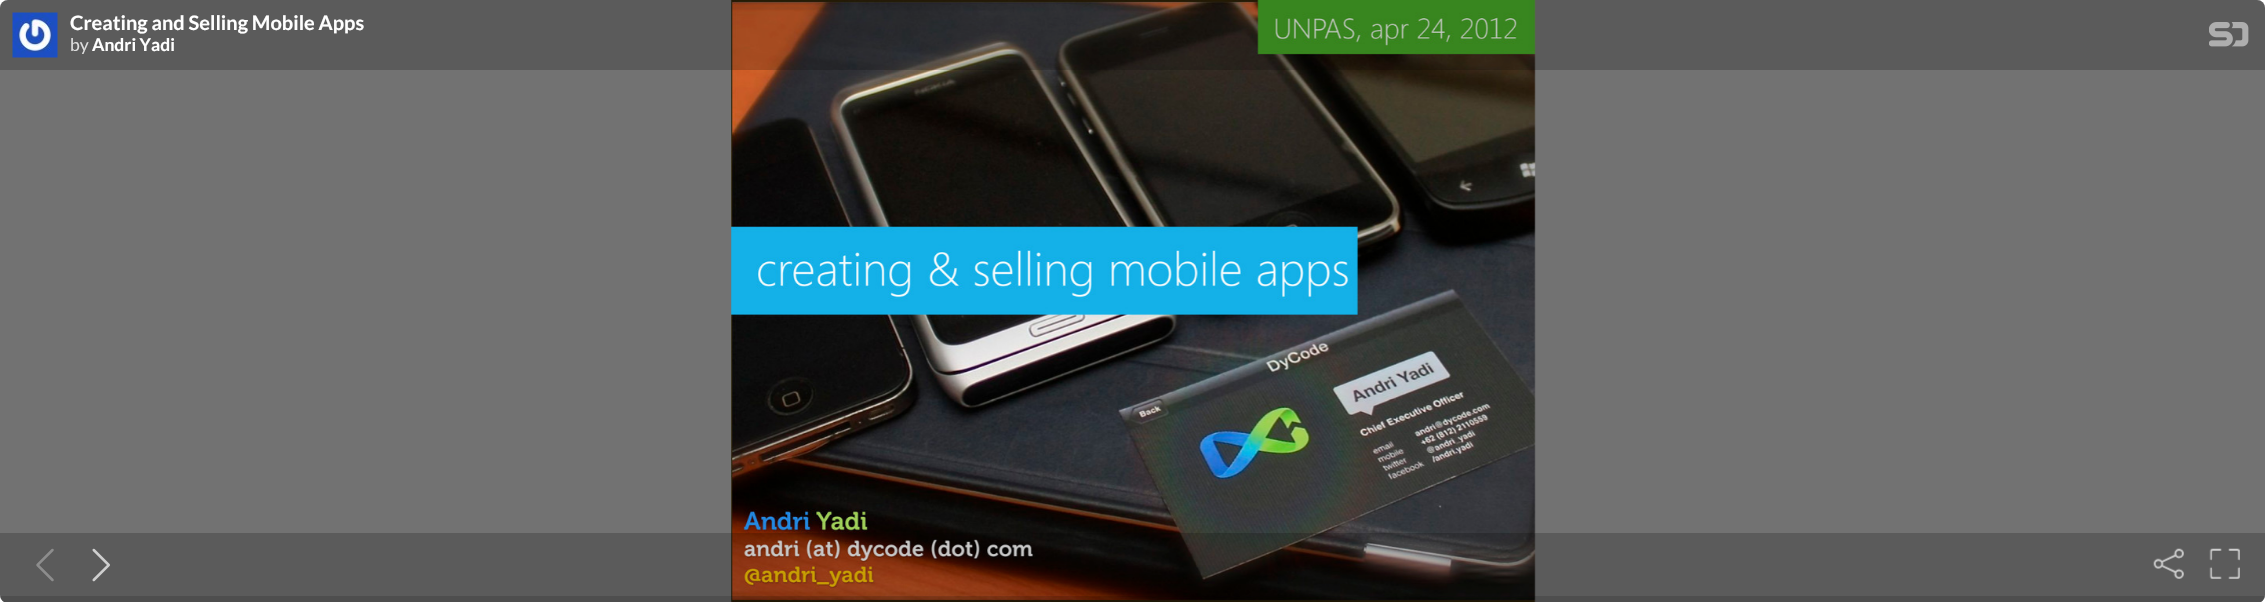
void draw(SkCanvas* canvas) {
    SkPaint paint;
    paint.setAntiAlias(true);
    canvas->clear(0xFFFFFFFF);
    paint.setColor(0xFF727272);
    canvas->drawRoundRect(SkRect::MakeXYWH(0, 0, 2265, 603), 8, 8, paint);
    canvas->drawImageRect(SkImages::DeferredFromEncodedData(SkData::MakeFromFileName("img1.png")), SkRect::MakeXYWH(731, 0, 805, 602), SkSamplingOptions());
    paint.setColor(0x33000000);
    canvas->drawPath(SkPathBuilder().moveTo(8, 0).lineTo(2257, 0).cubicTo(2261.5f, 0, 2265, 3.5f, 2265, 8).lineTo(2265, 70).lineTo(0, 70).lineTo(0, 8).cubicTo(0, 3.5f, 3.5f, 0, 8, 0).close().detach(), paint);
    canvas->drawImageRect(SkImages::DeferredFromEncodedData(SkData::MakeFromFileName("img2.png")), SkRect::MakeXYWH(12, 12, 46, 46), SkSamplingOptions());
    SkFont font1(fontMgr->matchFamilyStyle("Lato", SkFontStyle::Bold()), 20);
    font1.setSubpixel(true);
    paint.setColor(0xFFFFFFFF);
    canvas->drawString("Creating and Selling Mobile Apps", 70, 30, font1, paint);
    canvas->drawImageRect(SkImages::DeferredFromEncodedData(SkData::MakeFromFileName("img3.png")), SkRect::MakeXYWH(2209, 22, 40, 25), SkSamplingOptions());
    SkFont font2(fontMgr->matchFamilyStyle("Lato", SkFontStyle::Normal()), 17.5f);
    font2.setSubpixel(true);
    paint.setColor(0xFFDEDEDE);
    canvas->drawString("by", 70, 51, font2, paint);
    SkFont font3(fontMgr->matchFamilyStyle("Lato", SkFontStyle::Bold()), 17.5f);
    font3.setSubpixel(true);
    paint.setColor(0xFFFFFFFF);
    canvas->drawString("Andri Yadi", 92, 51, font3, paint);
    paint.setColor(0x33000000);
    canvas->drawPath(SkPathBuilder().moveTo(0, 533).lineTo(2265, 533).lineTo(2265, 595).cubicTo(2265, 599.5f, 2261.5f, 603, 2257, 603).lineTo(8, 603).cubicTo(3.5f, 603, 0, 599.5f, 0, 595).close().detach(), paint);
    canvas->drawImageRect(SkImages::DeferredFromEncodedData(SkData::MakeFromFileName("img4.png")), SkRect::MakeXYWH(36, 548, 18, 34), SkSamplingOptions());
    canvas->drawImageRect(SkImages::DeferredFromEncodedData(SkData::MakeFromFileName("img5.png")), SkRect::MakeXYWH(92, 548, 18, 34), SkSamplingOptions());
    canvas->drawImageRect(SkImages::DeferredFromEncodedData(SkData::MakeFromFileName("img6.png")), SkRect::MakeXYWH(2153, 548, 31, 31), SkSamplingOptions());
    canvas->drawImageRect(SkImages::DeferredFromEncodedData(SkData::MakeFromFileName("img7.png")), SkRect::MakeXYWH(2209, 548, 31, 31), SkSamplingOptions());
    canvas->save();
    canvas->clipPath(SkPathBuilder().moveTo(8, 0).lineTo(2257, 0).cubicTo(2261.5f, 0, 2265, 3.5f, 2265, 8).lineTo(2265, 595).cubicTo(2265, 599.5f, 2261.5f, 603, 2257, 603).lineTo(8, 603).cubicTo(3.5f, 603, 0, 599.5f, 0, 595).lineTo(0, 8).cubicTo(0, 3.5f, 3.5f, 0, 8, 0).close().detach(), true);
    paint.setColor(0x26000000);
    canvas->drawRect(SkRect::MakeXYWH(0, 596, 2265, 6), paint);
    canvas->restore();
}
